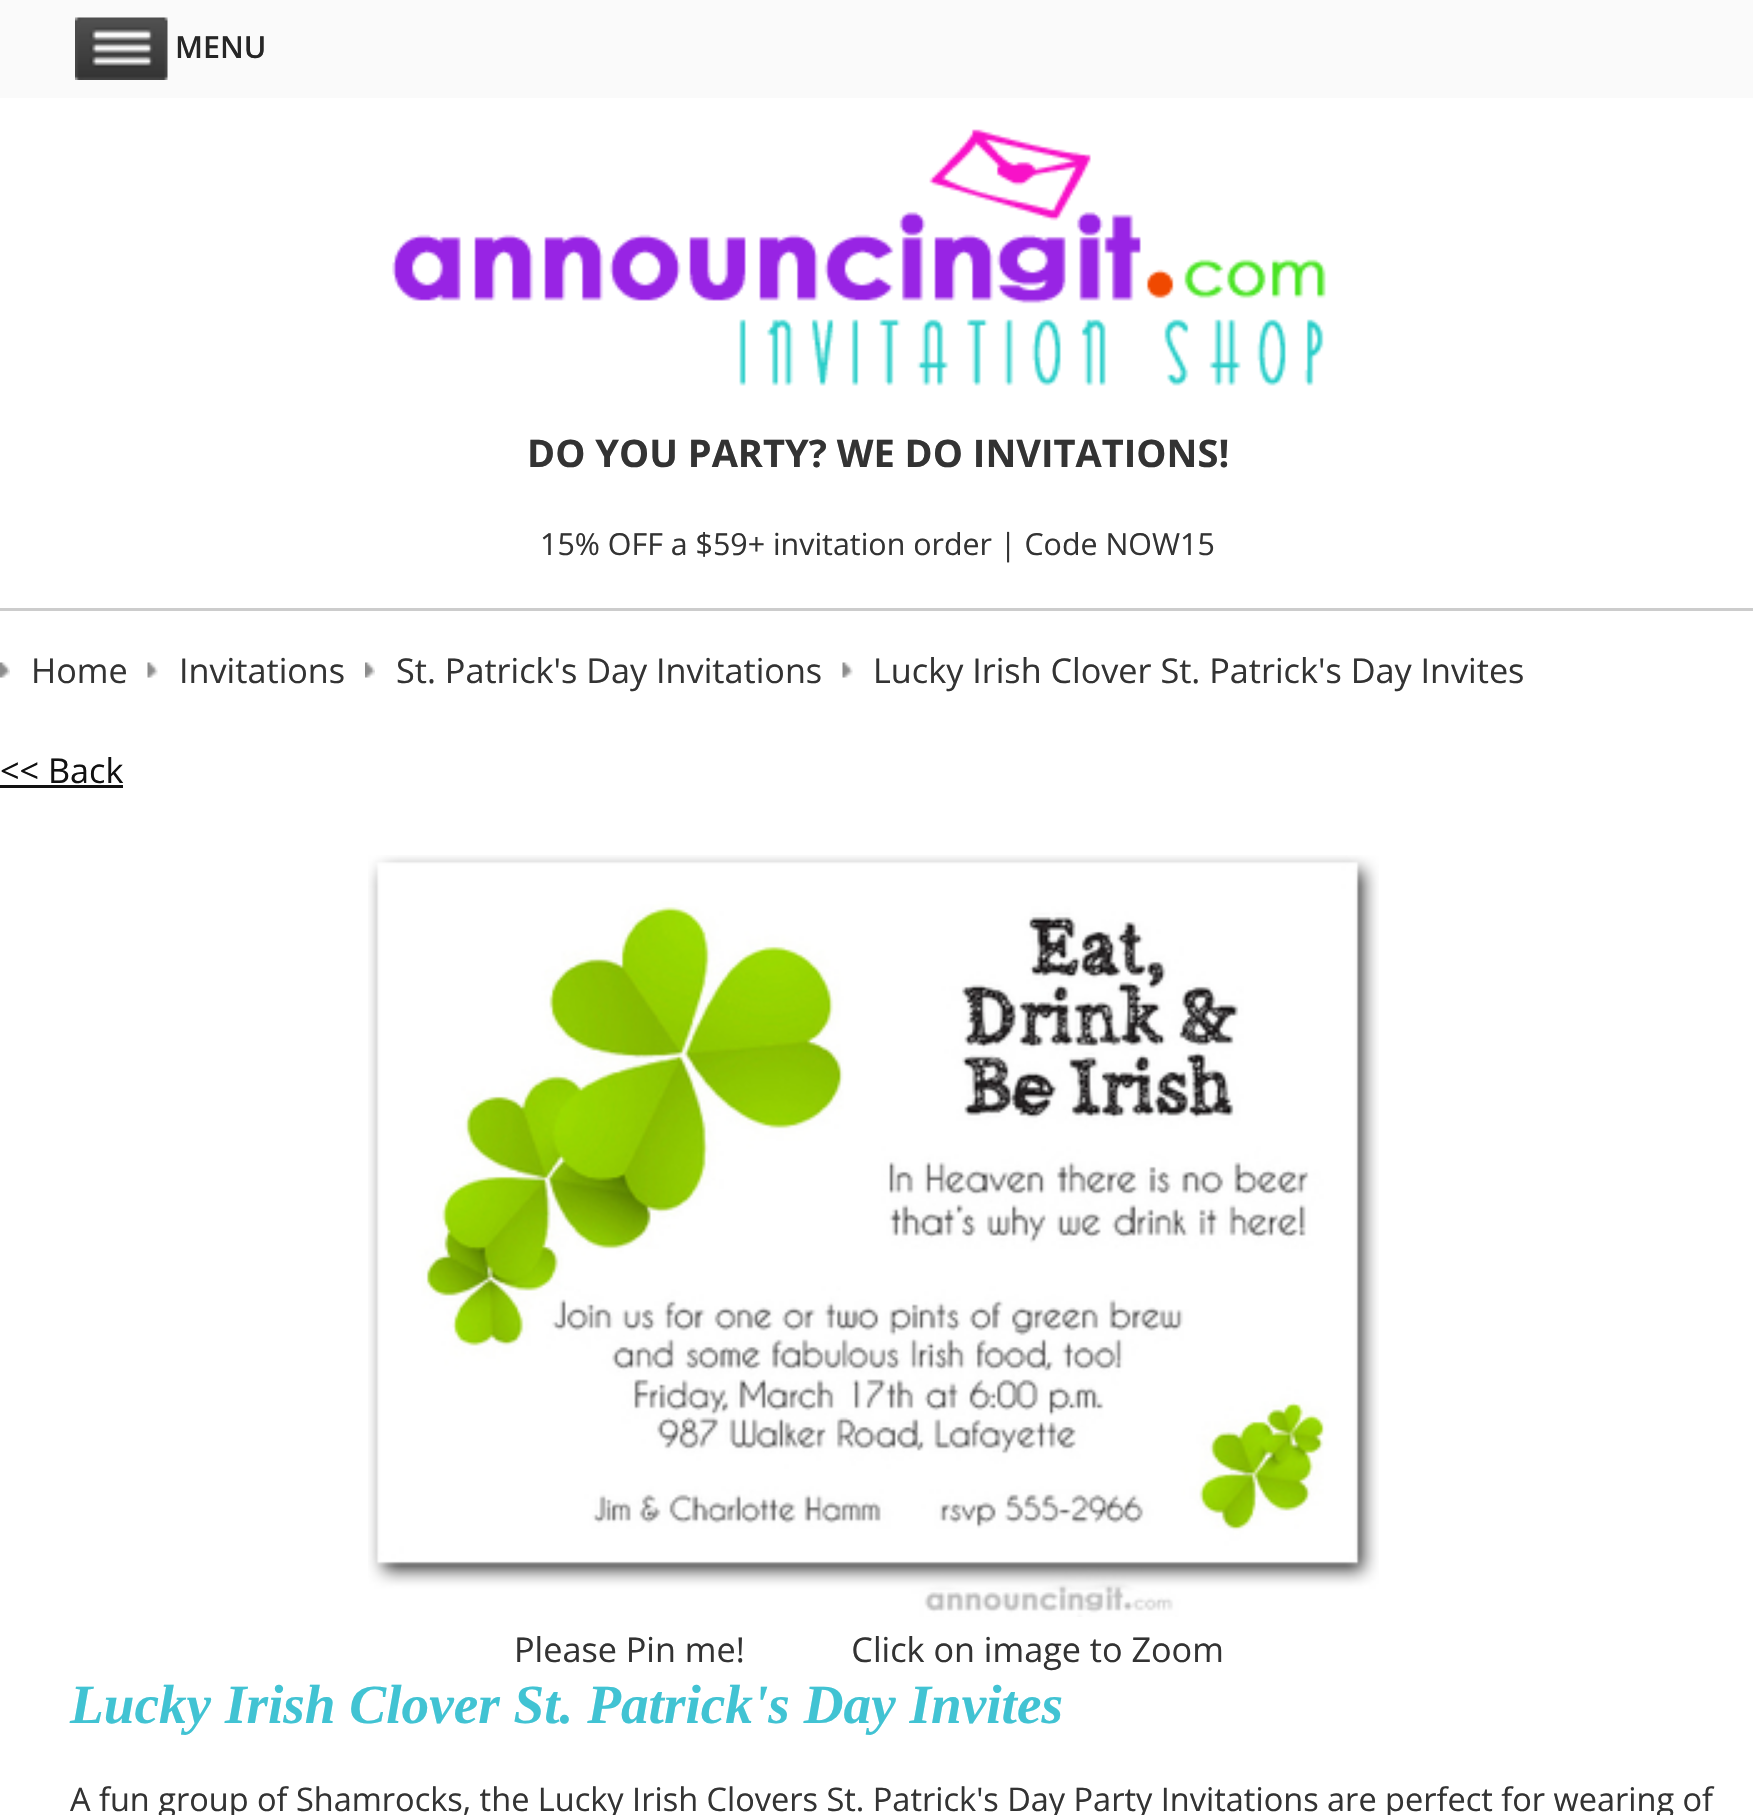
void draw(SkCanvas* canvas) {
    SkPaint paint;
    paint.setAntiAlias(true);
    canvas->clear(0xFFFFFFFF);
    paint.setColor(0xFFFAFAFA);
    canvas->drawRect(SkRect::MakeXYWH(0, 0, 1753, 98), paint);
    canvas->drawImageRect(SkImages::DeferredFromEncodedData(SkData::MakeFromFileName("img1.png")), SkRect::MakeXYWH(75, 17, 93, 63), SkSamplingOptions());
    SkFont font1(fontMgr->matchFamilyStyle("Open Sans", SkFontStyle(600, SkFontStyle::kNormal_Width, SkFontStyle::kUpright_Slant)), 30.4f);
    font1.setSubpixel(true);
    paint.setColor(0xFF262626);
    canvas->drawString("MENU", 175, 58, font1, paint);
    canvas->drawImageRect(SkImages::DeferredFromEncodedData(SkData::MakeFromFileName("img2.png")), SkRect::MakeXYWH(392, 129, 934, 257), SkSamplingOptions());
    SkFont font2(fontMgr->matchFamilyStyle("Open Sans", SkFontStyle::Bold()), 38);
    font2.setSubpixel(true);
    paint.setColor(0xFF333333);
    canvas->drawString("DO YOU PARTY? WE DO INVITATIONS!", 527, 467, font2, paint);
    paint.setColor(0xFFCCCCCC);
    canvas->drawRect(SkRect::MakeXYWH(0, 608, 1753, 3), paint);
    SkFont font3(fontMgr->matchFamilyStyle("Open Sans", SkFontStyle::Normal()), 30.4f);
    font3.setSubpixel(true);
    paint.setColor(0xFF333333);
    canvas->drawString("15% OFF a $59+ invitation order | Code NOW15", 540, 555, font3, paint);
    canvas->drawImageRect(SkImages::DeferredFromEncodedData(SkData::MakeFromFileName("img3.png")), SkRect::MakeXYWH(0, 662, 10, 16), SkSamplingOptions());
    SkFont font4(fontMgr->matchFamilyStyle("Open Sans", SkFontStyle::Normal()), 34.2f);
    font4.setSubpixel(true);
    canvas->drawString("Home", 31, 683, font4, paint);
    canvas->drawImageRect(SkImages::DeferredFromEncodedData(SkData::MakeFromFileName("img4.png")), SkRect::MakeXYWH(147, 662, 11, 16), SkSamplingOptions());
    canvas->drawString("Invitations", 179, 683, font4, paint);
    canvas->drawImageRect(SkImages::DeferredFromEncodedData(SkData::MakeFromFileName("img3.png")), SkRect::MakeXYWH(365, 662, 10, 16), SkSamplingOptions());
    canvas->drawString("St. Patrick's Day Invitations", 396, 683, font4, paint);
    canvas->drawImageRect(SkImages::DeferredFromEncodedData(SkData::MakeFromFileName("img4.png")), SkRect::MakeXYWH(842, 662, 11, 16), SkSamplingOptions());
    canvas->drawString("Lucky Irish Clover St. Patrick's Day Invites", 873, 683, font4, paint);
    paint.setColor(0xFF111111);
    canvas->drawString("<< Back", 0, 783, font4, paint);
    canvas->drawRect(SkRect::MakeXYWH(0, 785, 123, 3), paint);
    canvas->drawImageRect(SkImages::DeferredFromEncodedData(SkData::MakeFromFileName("img5.png")), SkRect::MakeXYWH(368, 855, 1011, 762), SkSamplingOptions());
    paint.setColor(0xFF333333);
    canvas->drawString("Please Pin me!            Click on image to Zoom", 514, 1662, font4, paint);
    SkFont font5(fontMgr->matchFamilyStyle("Liberation Serif", SkFontStyle::BoldItalic()), 55.25f);
    font5.setSubpixel(true);
    paint.setColor(0xFF41C3D3);
    canvas->drawString("Lucky Irish Clover St. Patrick's Day Invites", 70, 1723, font5, paint);
    SkFont font6(fontMgr->matchFamilyStyle("Open Sans", SkFontStyle::Normal()), 32.5f);
    font6.setSubpixel(true);
    paint.setColor(0xFF333333);
    canvas->drawString("A fun group of Shamrocks, the Lucky Irish Clovers St. Patrick's Day Party Invitations are perfect for wearing of", 70, 1811, font6, paint);
}
